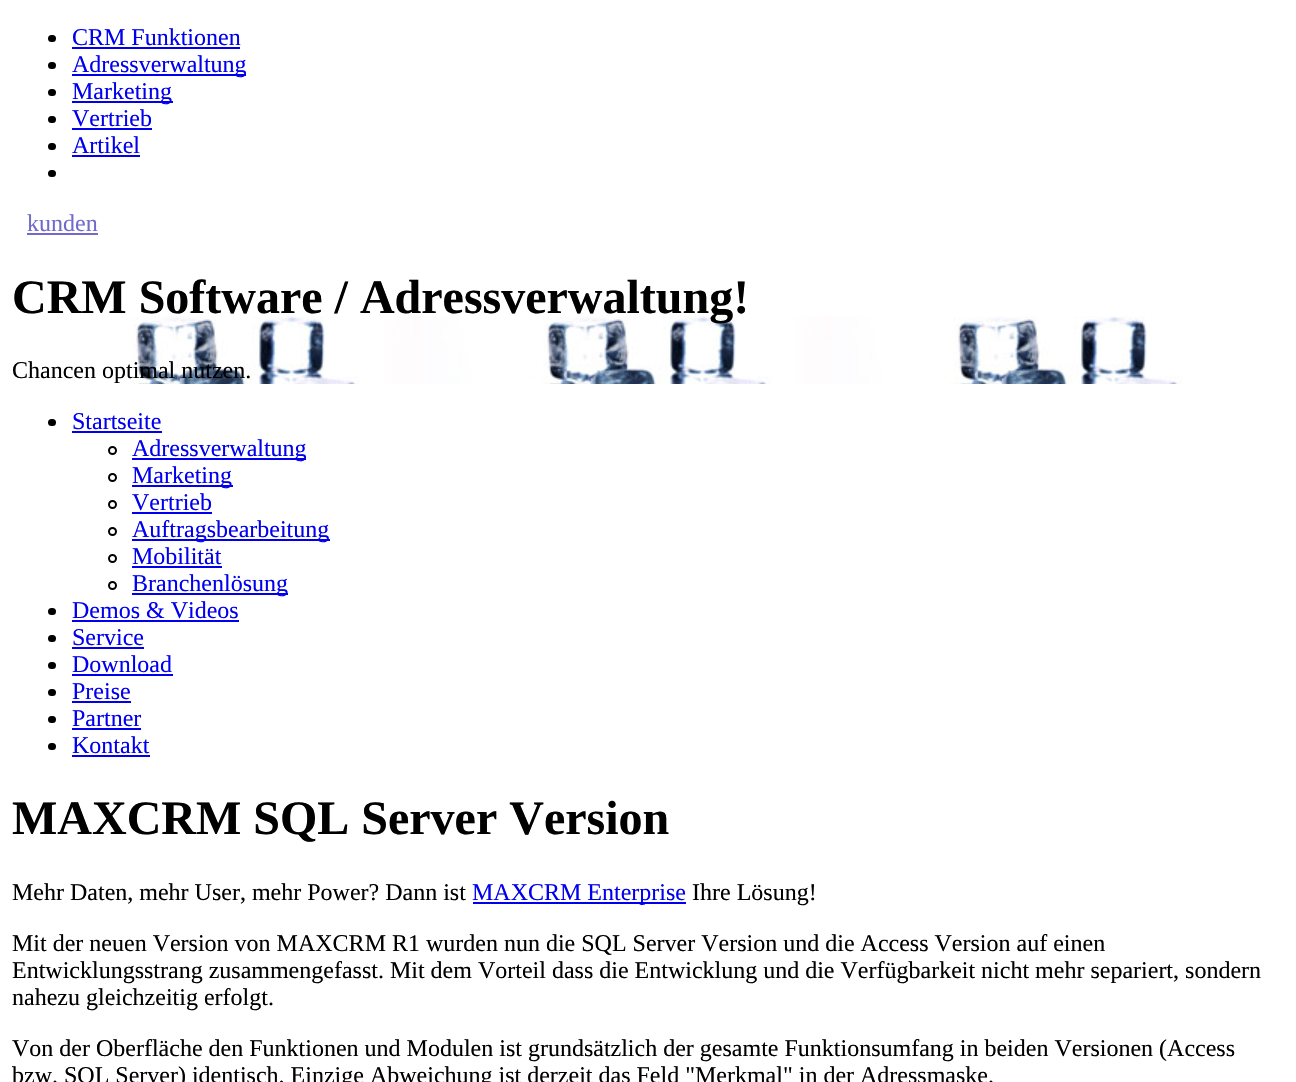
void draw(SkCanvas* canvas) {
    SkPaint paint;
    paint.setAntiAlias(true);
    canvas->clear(0xFFFFFFFF);
    paint.setColor(0xFF000000);
    canvas->drawRoundRect(SkRect::MakeXYWH(48, 35, 8, 7), 3.5f, 3.5f, paint);
    SkFont font1(fontMgr->matchFamilyStyle("Liberation Serif", SkFontStyle::Normal()), 24);
    font1.setSubpixel(true);
    paint.setColor(0xFF0000EE);
    canvas->drawString("CRM Funktionen", 72, 45, font1, paint);
    canvas->drawRect(SkRect::MakeXYWH(72, 47, 168, 2), paint);
    paint.setColor(0xFF000000);
    canvas->drawRoundRect(SkRect::MakeXYWH(48, 62, 8, 7), 3.5f, 3.5f, paint);
    paint.setColor(0xFF0000EE);
    canvas->drawRect(SkRect::MakeXYWH(72, 74, 174, 2), paint);
    canvas->drawString("Adressverwaltung", 72, 72, font1, paint);
    paint.setColor(0xFF000000);
    canvas->drawRoundRect(SkRect::MakeXYWH(48, 89, 8, 7), 3.5f, 3.5f, paint);
    paint.setColor(0xFF0000EE);
    canvas->drawRect(SkRect::MakeXYWH(72, 101, 101, 2), paint);
    canvas->drawString("Marketing", 72, 99, font1, paint);
    paint.setColor(0xFF000000);
    canvas->drawRoundRect(SkRect::MakeXYWH(48, 116, 8, 7), 3.5f, 3.5f, paint);
    paint.setColor(0xFF0000EE);
    canvas->drawString("Vertrieb", 72, 126, font1, paint);
    canvas->drawRect(SkRect::MakeXYWH(72, 128, 80, 2), paint);
    paint.setColor(0xFF000000);
    canvas->drawRoundRect(SkRect::MakeXYWH(48, 143, 8, 7), 3.5f, 3.5f, paint);
    paint.setColor(0xFF0000EE);
    canvas->drawString("Artikel", 72, 153, font1, paint);
    canvas->drawRect(SkRect::MakeXYWH(72, 155, 68, 2), paint);
    paint.setColor(0xFF000000);
    canvas->drawRoundRect(SkRect::MakeXYWH(48, 170, 8, 7), 3.5f, 3.5f, paint);
    paint.setColor(0xFF716ACB);
    canvas->drawString("kunden", 27, 231, font1, paint);
    canvas->drawRect(SkRect::MakeXYWH(27, 233, 71, 2), paint);
    canvas->drawImageRect(SkImages::DeferredFromEncodedData(SkData::MakeFromFileName("img1.png")), SkRect::MakeXYWH(132, 316, 1050, 68), SkSamplingOptions());
    SkFont font2(fontMgr->matchFamilyStyle("Liberation Serif", SkFontStyle::Bold()), 48);
    font2.setSubpixel(true);
    paint.setColor(0xFF000000);
    canvas->drawString("CRM Software / Adressverwaltung!", 12, 313, font2, paint);
    canvas->drawString("Chancen optimal nutzen.", 12, 378, font1, paint);
    canvas->drawRoundRect(SkRect::MakeXYWH(48, 419, 8, 7), 3.5f, 3.5f, paint);
    paint.setColor(0xFF0000EE);
    canvas->drawString("Startseite", 72, 429, font1, paint);
    canvas->drawRect(SkRect::MakeXYWH(72, 431, 90, 2), paint);
    paint.setStyle(SkPaint::kStroke_Style);
    paint.setStrokeWidth(2);
    paint.setColor(0xFF000000);
    canvas->drawCircle(112.5f, 450.5f, 3.5f, paint);
    paint.setStyle(SkPaint::kFill_Style);
    paint.setColor(0xFF0000EE);
    canvas->drawRect(SkRect::MakeXYWH(132, 458, 174, 2), paint);
    canvas->drawString("Adressverwaltung", 132, 456, font1, paint);
    paint.setStyle(SkPaint::kStroke_Style);
    paint.setColor(0xFF000000);
    canvas->drawCircle(112.5f, 477.5f, 3.5f, paint);
    paint.setStyle(SkPaint::kFill_Style);
    paint.setColor(0xFF0000EE);
    canvas->drawRect(SkRect::MakeXYWH(132, 485, 101, 2), paint);
    canvas->drawString("Marketing", 132, 483, font1, paint);
    paint.setStyle(SkPaint::kStroke_Style);
    paint.setColor(0xFF000000);
    canvas->drawCircle(112.5f, 504.5f, 3.5f, paint);
    paint.setStyle(SkPaint::kFill_Style);
    paint.setColor(0xFF0000EE);
    canvas->drawString("Vertrieb", 132, 510, font1, paint);
    canvas->drawRect(SkRect::MakeXYWH(132, 512, 80, 2), paint);
    paint.setStyle(SkPaint::kStroke_Style);
    paint.setColor(0xFF000000);
    canvas->drawCircle(112.5f, 531.5f, 3.5f, paint);
    paint.setStyle(SkPaint::kFill_Style);
    paint.setColor(0xFF0000EE);
    canvas->drawRect(SkRect::MakeXYWH(132, 539, 198, 2), paint);
    canvas->drawString("Auftragsbearbeitung", 132, 537, font1, paint);
    paint.setStyle(SkPaint::kStroke_Style);
    paint.setColor(0xFF000000);
    canvas->drawCircle(112.5f, 558.5f, 3.5f, paint);
    paint.setStyle(SkPaint::kFill_Style);
    paint.setColor(0xFF0000EE);
    canvas->drawString("Mobilität", 132, 564, font1, paint);
    canvas->drawRect(SkRect::MakeXYWH(132, 566, 90, 2), paint);
    paint.setStyle(SkPaint::kStroke_Style);
    paint.setColor(0xFF000000);
    canvas->drawCircle(112.5f, 585.5f, 3.5f, paint);
    paint.setStyle(SkPaint::kFill_Style);
    paint.setColor(0xFF0000EE);
    canvas->drawRect(SkRect::MakeXYWH(132, 593, 156, 2), paint);
    canvas->drawString("Branchenlösung", 132, 591, font1, paint);
    paint.setColor(0xFF000000);
    canvas->drawRoundRect(SkRect::MakeXYWH(48, 608, 8, 7), 3.5f, 3.5f, paint);
    paint.setColor(0xFF0000EE);
    canvas->drawString("Demos & Videos", 72, 618, font1, paint);
    canvas->drawRect(SkRect::MakeXYWH(72, 620, 167, 2), paint);
    paint.setColor(0xFF000000);
    canvas->drawRoundRect(SkRect::MakeXYWH(48, 635, 8, 7), 3.5f, 3.5f, paint);
    paint.setColor(0xFF0000EE);
    canvas->drawString("Service", 72, 645, font1, paint);
    canvas->drawRect(SkRect::MakeXYWH(72, 647, 72, 2), paint);
    paint.setColor(0xFF000000);
    canvas->drawRoundRect(SkRect::MakeXYWH(48, 662, 8, 7), 3.5f, 3.5f, paint);
    paint.setColor(0xFF0000EE);
    canvas->drawString("Download", 72, 672, font1, paint);
    canvas->drawRect(SkRect::MakeXYWH(72, 674, 101, 2), paint);
    paint.setColor(0xFF000000);
    canvas->drawRoundRect(SkRect::MakeXYWH(48, 689, 8, 7), 3.5f, 3.5f, paint);
    paint.setColor(0xFF0000EE);
    canvas->drawString("Preise", 72, 699, font1, paint);
    canvas->drawRect(SkRect::MakeXYWH(72, 701, 59, 2), paint);
    paint.setColor(0xFF000000);
    canvas->drawRoundRect(SkRect::MakeXYWH(48, 716, 8, 7), 3.5f, 3.5f, paint);
    paint.setColor(0xFF0000EE);
    canvas->drawString("Partner", 72, 726, font1, paint);
    canvas->drawRect(SkRect::MakeXYWH(72, 728, 69, 2), paint);
    paint.setColor(0xFF000000);
    canvas->drawRoundRect(SkRect::MakeXYWH(48, 743, 8, 7), 3.5f, 3.5f, paint);
    paint.setColor(0xFF0000EE);
    canvas->drawString("Kontakt", 72, 753, font1, paint);
    canvas->drawRect(SkRect::MakeXYWH(72, 755, 78, 2), paint);
    paint.setColor(0xFF000000);
    canvas->drawString("MAXCRM SQL Server Version", 12, 834, font2, paint);
    canvas->drawString("Mehr Daten, mehr User, mehr Power? Dann ist", 12, 900, font1, paint);
    paint.setColor(0xFF0000EE);
    canvas->drawRect(SkRect::MakeXYWH(473, 902, 213, 2), paint);
    canvas->drawString("MAXCRM Enterprise", 472, 900, font1, paint);
    paint.setColor(0xFF000000);
    canvas->drawString("Ihre Lösung!", 692, 900, font1, paint);
    canvas->drawString("Mit der neuen Version von MAXCRM R1 wurden nun die SQL Server Version und die Access Version auf einen", 12, 951, font1, paint);
    canvas->drawString("Entwicklungsstrang zusammengefasst. Mit dem Vorteil dass die Entwicklung und die Verfügbarkeit nicht mehr separiert, sondern", 12, 978, font1, paint);
    canvas->drawString("nahezu gleichzeitig erfolgt.", 12, 1005, font1, paint);
    canvas->drawString("Von der Oberfläche den Funktionen und Modulen ist grundsätzlich der gesamte Funktionsumfang in beiden Versionen (Access", 12, 1056, font1, paint);
    canvas->drawString("bzw. SQL Server) identisch. Einzige Abweichung ist derzeit das Feld \"Merkmal\" in der Adressmaske.", 12, 1083, font1, paint);
}
